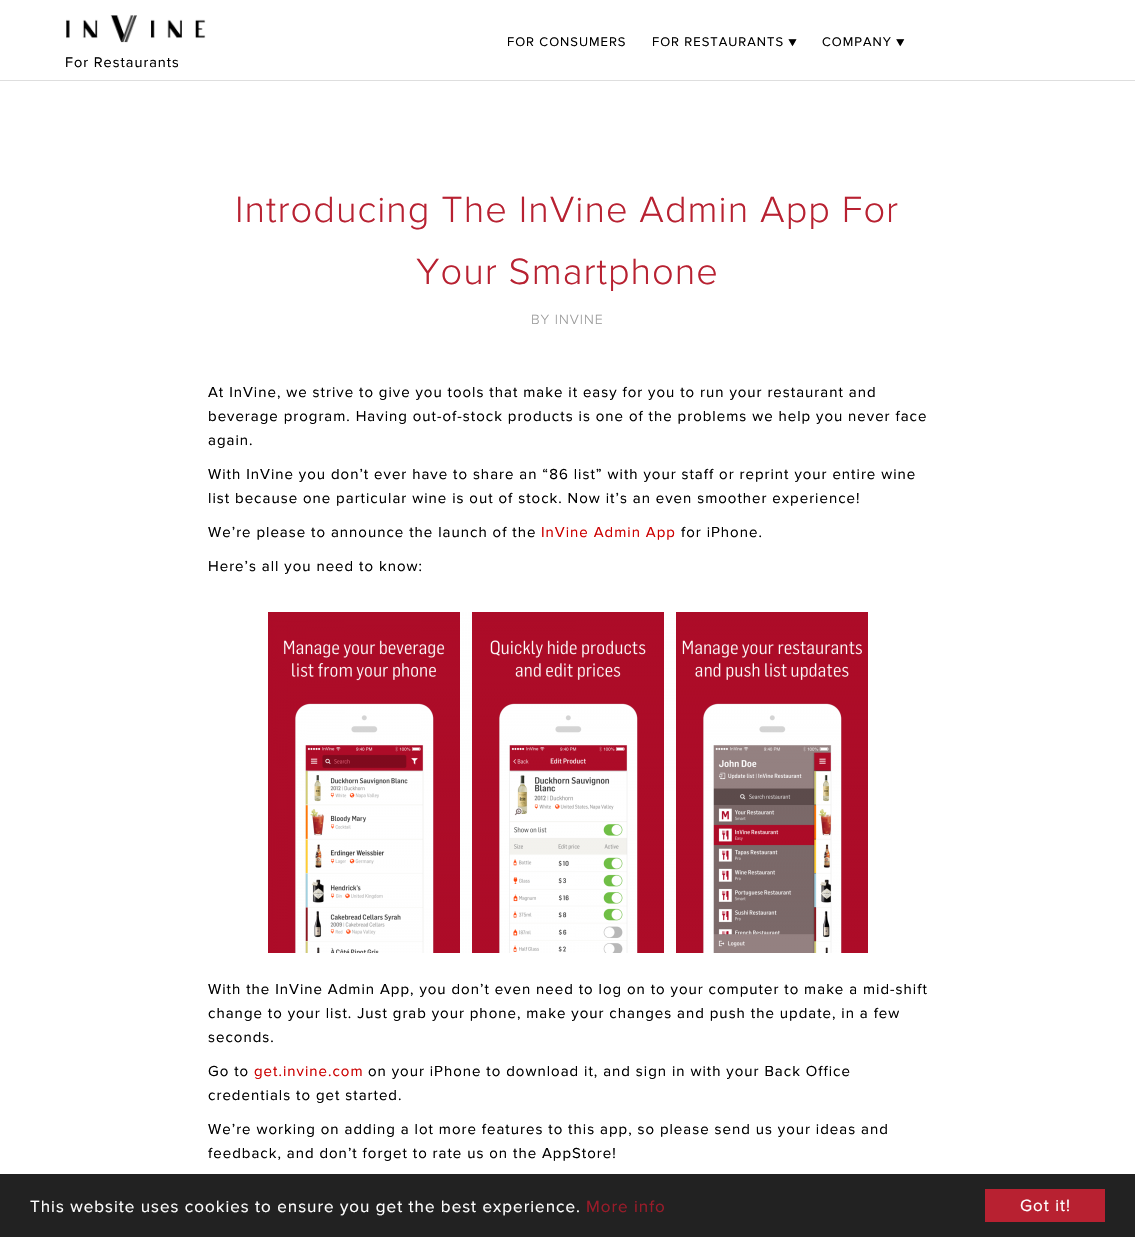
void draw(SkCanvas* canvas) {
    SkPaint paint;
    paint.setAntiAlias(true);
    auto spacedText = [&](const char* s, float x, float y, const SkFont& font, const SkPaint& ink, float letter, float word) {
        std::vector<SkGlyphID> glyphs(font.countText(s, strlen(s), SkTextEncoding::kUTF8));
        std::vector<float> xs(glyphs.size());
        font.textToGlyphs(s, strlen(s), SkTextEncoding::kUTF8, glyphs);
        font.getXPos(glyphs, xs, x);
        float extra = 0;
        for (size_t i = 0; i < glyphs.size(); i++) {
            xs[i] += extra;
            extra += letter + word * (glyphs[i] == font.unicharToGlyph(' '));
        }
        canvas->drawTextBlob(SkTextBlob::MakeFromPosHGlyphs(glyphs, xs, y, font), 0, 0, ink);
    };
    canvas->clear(0xFFFFFFFF);
    SkFont font1(fontMgr->matchFamilyStyle("Proxima Nova", SkFontStyle::Normal()), 13);
    font1.setSubpixel(true);
    paint.setColor(0xFF000000);
    spacedText("FOR CONSUMERS", 507, 46, font1, paint, 1, 0);
    spacedText("FOR RESTAURANTS ▼", 652, 46, font1, paint, 1, 0);
    spacedText("COMPANY ▼", 822, 46, font1, paint, 1, 0);
    canvas->drawImageRect(SkImages::DeferredFromEncodedData(SkData::MakeFromFileName("img1.png")), SkRect::MakeXYWH(66, 15, 140, 28), SkSamplingOptions());
    SkFont font2(fontMgr->matchFamilyStyle("Proxima Nova", SkFontStyle::Normal()), 14.5f);
    font2.setSubpixel(true);
    spacedText("For Restaurants", 65, 67, font2, paint, 1, 0);
    paint.setColor(0xFFDEDEDE);
    canvas->drawRect(SkRect::MakeXYWH(0, 80, 1135, 1), paint);
    SkFont font3(fontMgr->matchFamilyStyle("Proxima Nova", SkFontStyle(300, SkFontStyle::kNormal_Width, SkFontStyle::kUpright_Slant)), 38);
    font3.setSubpixel(true);
    paint.setColor(0xFFB82131);
    spacedText("Introducing The InVine Admin App For", 235, 222, font3, paint, 1, 0);
    spacedText("Your Smartphone", 416, 284, font3, paint, 1, 0);
    SkFont font4(fontMgr->matchFamilyStyle("Proxima Nova", SkFontStyle(300, SkFontStyle::kNormal_Width, SkFontStyle::kUpright_Slant)), 14);
    font4.setSubpixel(true);
    paint.setColor(0xFF999999);
    spacedText("BY INVINE", 531, 324, font4, paint, 1, 0);
    SkFont font5(fontMgr->matchFamilyStyle("Proxima Nova", SkFontStyle::Normal()), 15);
    font5.setSubpixel(true);
    paint.setColor(0xFF000000);
    spacedText("At InVine, we strive to give you tools that make it easy for you to run your restaurant and", 208, 397, font5, paint, 1, 0);
    spacedText("beverage program. Having out-of-stock products is one of the problems we help you never face", 208, 421, font5, paint, 1, 0);
    spacedText("again.", 208, 445, font5, paint, 1, 0);
    spacedText("With InVine you don’t ever have to share an “86 list” with your staff or reprint your entire wine", 208, 479, font5, paint, 1, 0);
    spacedText("list because one particular wine is out of stock. Now it’s an even smoother experience!", 208, 503, font5, paint, 1, 0);
    spacedText("We’re please to announce the launch of the", 208, 537, font5, paint, 1, 0);
    paint.setColor(0xFFCC0000);
    spacedText("InVine Admin App", 541, 537, font5, paint, 1, 0);
    paint.setColor(0xFF000000);
    spacedText("for iPhone.", 681, 537, font5, paint, 1, 0);
    spacedText("Here’s all you need to know:", 208, 571, font5, paint, 1, 0);
    canvas->drawImageRect(SkImages::DeferredFromEncodedData(SkData::MakeFromFileName("img2.png")), SkRect::MakeXYWH(268, 612, 600, 341), SkSamplingOptions());
    spacedText("With the InVine Admin App, you don’t even need to log on to your computer to make a mid-shift", 208, 994, font5, paint, 1, 0);
    spacedText("change to your list. Just grab your phone, make your changes and push the update, in a few", 208, 1018, font5, paint, 1, 0);
    spacedText("seconds.", 208, 1042, font5, paint, 1, 0);
    spacedText("Go to", 208, 1076, font5, paint, 1, 0);
    paint.setColor(0xFFCC0000);
    spacedText("get.invine.com", 254, 1076, font5, paint, 1, 0);
    paint.setColor(0xFF000000);
    spacedText("on your iPhone to download it, and sign in with your Back Office", 368, 1076, font5, paint, 1, 0);
    spacedText("credentials to get started.", 208, 1100, font5, paint, 1, 0);
    spacedText("We’re working on adding a lot more features to this app, so please send us your ideas and", 208, 1134, font5, paint, 1, 0);
    spacedText("feedback, and don’t forget to rate us on the AppStore!", 208, 1158, font5, paint, 1, 0);
    paint.setColor(0xFF222222);
    canvas->drawRect(SkRect::MakeXYWH(0, 1174, 1135, 63), paint);
    SkFont font6(fontMgr->matchFamilyStyle("Proxima Nova", SkFontStyle::Normal()), 17);
    font6.setSubpixel(true);
    paint.setColor(0xFFFFFFFF);
    spacedText("This website uses cookies to ensure you get the best experience.", 30, 1212, font6, paint, 1, 0);
    paint.setColor(0xFF9A1B29);
    spacedText("More info", 586, 1212, font6, paint, 1, 0);
    paint.setColor(0xFFB82131);
    canvas->drawRect(SkRect::MakeXYWH(985, 1189, 120, 33), paint);
    paint.setColor(0xFFFFFFFF);
    spacedText("Got it!", 1020, 1211, font6, paint, 1, 0);
}
